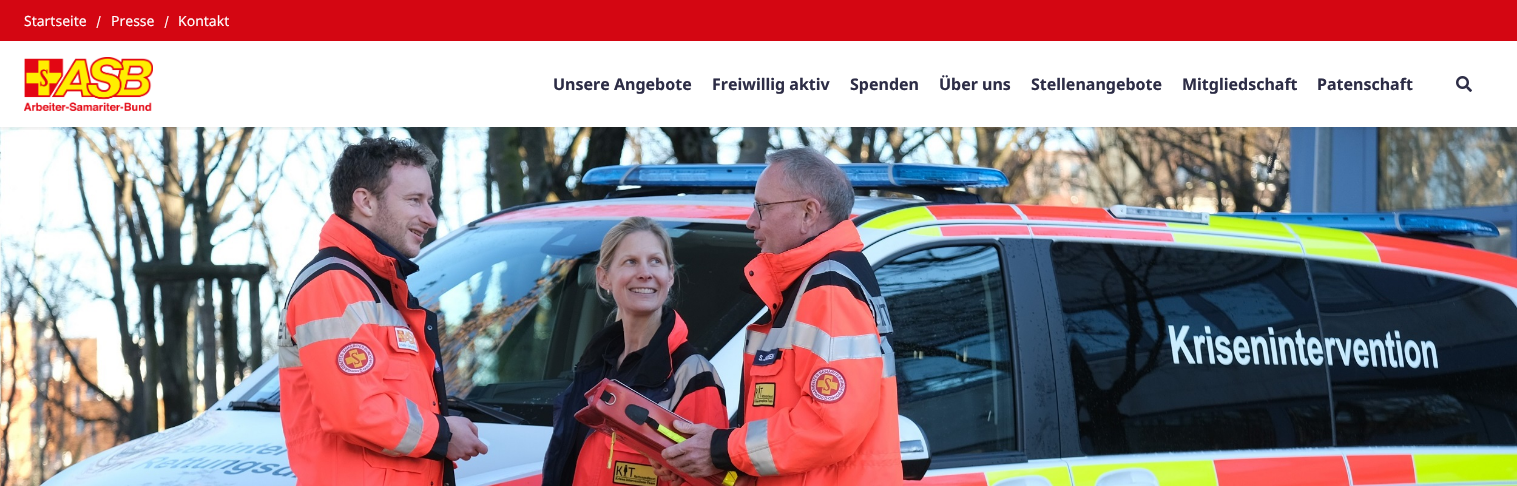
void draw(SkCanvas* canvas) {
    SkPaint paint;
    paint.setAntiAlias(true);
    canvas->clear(0xFFFFFFFF);
    canvas->drawImageRect(SkImages::DeferredFromEncodedData(SkData::MakeFromFileName("img3.png")), SkRect::MakeXYWH(0, 127, 1517, 359), SkSamplingOptions());
    canvas->save();
    canvas->clipRect(SkRect::MakeXYWH(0, 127, 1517, 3));
    paint.setColor(0x12000000);
    paint.setMaskFilter(SkMaskFilter::MakeBlur(kNormal_SkBlurStyle, 2));
    canvas->drawRect(SkRect::MakeXYWH(0, 2, 1517, 127), paint);
    paint.setMaskFilter(nullptr);
    canvas->restore();
    paint.setColor(0xFFD40612);
    canvas->drawRect(SkRect::MakeXYWH(0, 0, 1517, 41), paint);
    SkFont font1(fontMgr->matchFamilyStyle("Noto Sans", SkFontStyle::Normal()), 14);
    font1.setSubpixel(true);
    paint.setColor(0xFFFFFFFF);
    canvas->drawString("Startseite", 24, 26, font1, paint);
    SkFont font2(fontMgr->matchFamilyStyle("Noto Sans", SkFontStyle::Normal()), 12);
    font2.setSubpixel(true);
    canvas->drawString("/", 96, 26, font2, paint);
    canvas->drawString("Presse", 111, 26, font1, paint);
    canvas->drawString("/", 164, 26, font2, paint);
    canvas->drawString("Kontakt", 178, 26, font1, paint);
    canvas->drawImageRect(SkImages::DeferredFromEncodedData(SkData::MakeFromFileName("img1.png")), SkRect::MakeXYWH(24, 57, 129, 54), SkSamplingOptions());
    SkFont font3(fontMgr->matchFamilyStyle("Noto Sans", SkFontStyle::Bold()), 16);
    font3.setSubpixel(true);
    paint.setColor(0xFF2D2D46);
    canvas->drawString("Unsere Angebote", 553, 90, font3, paint);
    canvas->drawString("Freiwillig aktiv", 712, 90, font3, paint);
    canvas->drawString("Spenden", 850, 90, font3, paint);
    canvas->drawString("Über uns", 939, 90, font3, paint);
    canvas->drawString("Stellenangebote", 1031, 90, font3, paint);
    canvas->drawString("Mitgliedschaft", 1182, 90, font3, paint);
    canvas->drawString("Patenschaft", 1317, 90, font3, paint);
    canvas->drawImageRect(SkImages::DeferredFromEncodedData(SkData::MakeFromFileName("img2.png")), SkRect::MakeXYWH(1456, 76, 16, 16), SkSamplingOptions());
}
